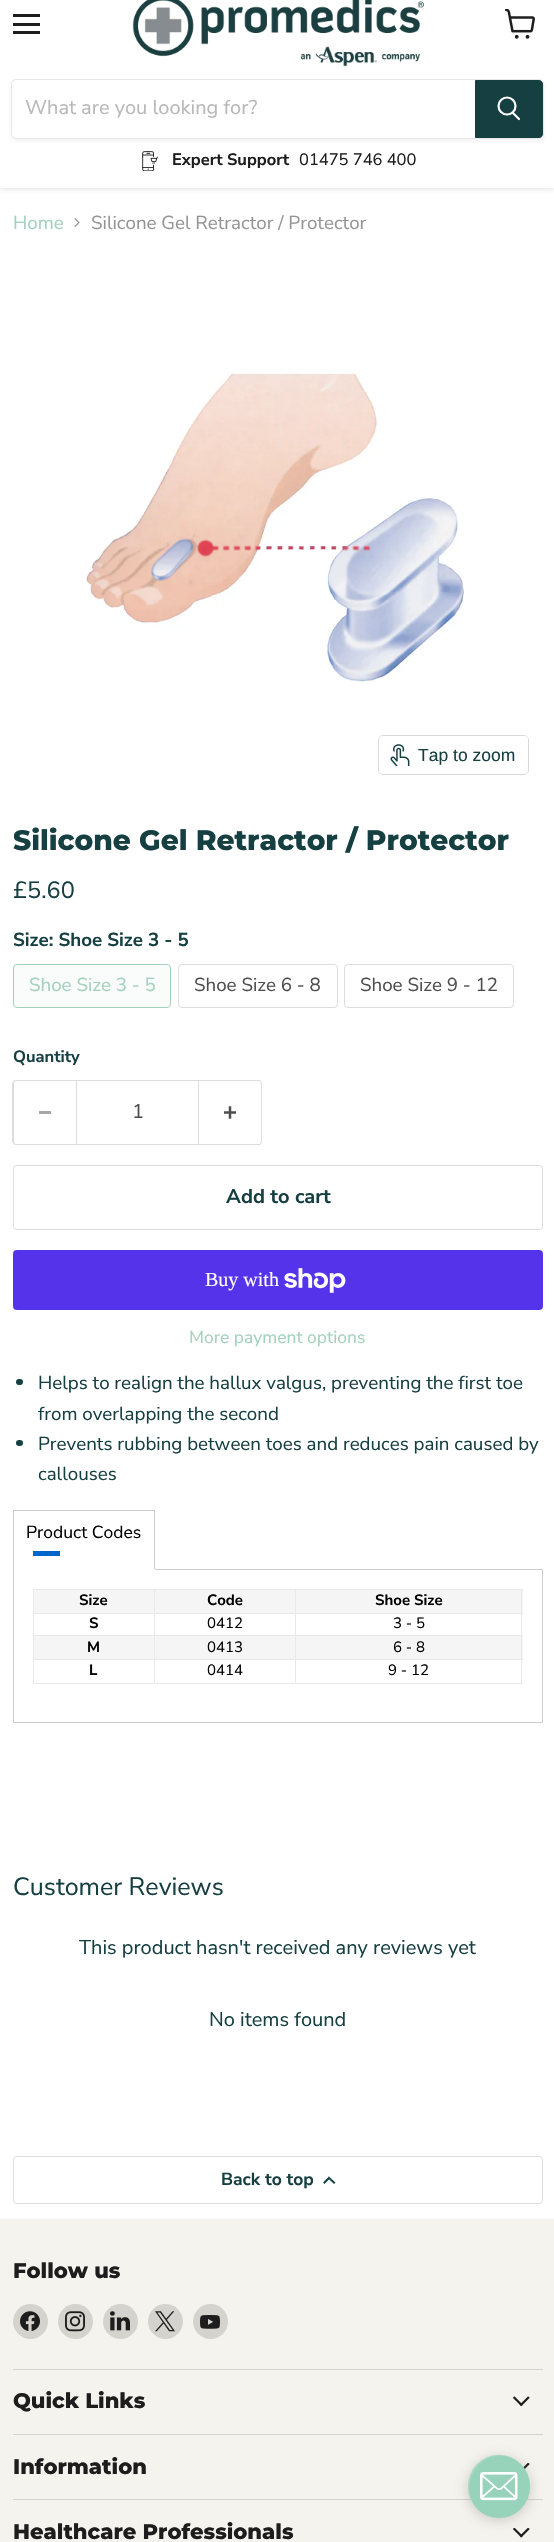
void draw(SkCanvas* canvas) {
    SkPaint paint;
    paint.setAntiAlias(true);
    canvas->clear(0xFFFFFFFF);
    paint.setColor(0x40808080);
    paint.setMaskFilter(SkMaskFilter::MakeBlur(kNormal_SkBlurStyle, 2.5f));
    canvas->drawRect(SkRect::MakeXYWH(0, -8, 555, 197), paint);
    paint.setMaskFilter(nullptr);
    paint.setColor(0xFFFFFFFF);
    canvas->drawRect(SkRect::MakeXYWH(0, 0, 554, 188), paint);
    paint.setColor(0xFF1D1D1D);
    canvas->drawRect(SkRect::MakeXYWH(13, 14, 27, 3), paint);
    canvas->drawRect(SkRect::MakeXYWH(13, 23, 27, 3), paint);
    canvas->drawRect(SkRect::MakeXYWH(13, 31, 27, 3), paint);
    canvas->drawImageRect(SkImages::DeferredFromEncodedData(SkData::MakeFromFileName("img1.png")), SkRect::MakeXYWH(505, 9, 30, 30), SkSamplingOptions());
    canvas->drawImageRect(SkImages::DeferredFromEncodedData(SkData::MakeFromFileName("img2.png")), SkRect::MakeXYWH(132, 0, 292, 67), SkSamplingOptions());
    canvas->save();
    canvas->clipPath(SkPathBuilder(SkPathFillType::kEvenOdd).moveTo(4, 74).lineTo(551, 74).lineTo(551, 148).lineTo(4, 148).close().moveTo(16, 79).lineTo(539, 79).cubicTo(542, 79, 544, 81, 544, 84).lineTo(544, 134).cubicTo(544, 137, 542, 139, 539, 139).lineTo(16, 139).cubicTo(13, 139, 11, 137, 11, 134).lineTo(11, 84).cubicTo(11, 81, 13, 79, 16, 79).close().detach(), true);
    paint.setColor(0x1C808080);
    paint.setMaskFilter(SkMaskFilter::MakeBlur(kNormal_SkBlurStyle, 2));
    canvas->drawRoundRect(SkRect::MakeXYWH(11, 81, 533, 60), 5, 5, paint);
    paint.setMaskFilter(nullptr);
    canvas->restore();
    paint.setStyle(SkPaint::kStroke_Style);
    paint.setStrokeWidth(1);
    paint.setColor(0x33808080);
    canvas->drawRoundRect(SkRect::MakeXYWH(11.5f, 79.5f, 532, 59), 4.5f, 4.5f, paint);
    SkFont font1(fontMgr->matchFamilyStyle("Nunito Sans", SkFontStyle::Normal()), 20);
    font1.setSubpixel(true);
    paint.setStyle(SkPaint::kFill_Style);
    paint.setColor(0xFFB8B8B8);
    canvas->drawString("What are you looking for?", 25, 114, font1, paint);
    paint.setColor(0xFF163F42);
    canvas->drawPath(SkPathBuilder().moveTo(475.5f, 80.5f).lineTo(539, 80.5f).cubicTo(541, 80.5f, 542.5f, 82, 542.5f, 84).lineTo(542.5f, 134).cubicTo(542.5f, 136, 541, 137.5f, 539, 137.5f).lineTo(475.5f, 137.5f).close().detach(), paint);
    paint.setStyle(SkPaint::kStroke_Style);
    canvas->drawPath(SkPathBuilder().moveTo(475.5f, 80.5f).lineTo(539, 80.5f).cubicTo(541, 80.5f, 542.5f, 82, 542.5f, 84).lineTo(542.5f, 134).cubicTo(542.5f, 136, 541, 137.5f, 539, 137.5f).lineTo(475.5f, 137.5f).close().detach(), paint);
    paint.setStrokeWidth(2.2f);
    paint.setStrokeCap(SkPaint::kRound_Cap);
    paint.setColor(0xFFFFFFFF);
    canvas->drawPath(SkPathBuilder().moveTo(519, 119).lineTo(513, 113).detach(), paint);
    paint.setStrokeCap(SkPaint::kButt_Cap);
    canvas->drawCircle(507, 106, 8.5f, paint);
    canvas->drawImageRect(SkImages::DeferredFromEncodedData(SkData::MakeFromFileName("img3.png")), SkRect::MakeXYWH(142, 151, 16, 20), SkSamplingOptions());
    SkFont font2(fontMgr->matchFamilyStyle("Nunito Sans", SkFontStyle::Bold()), 16.5f);
    font2.setSubpixel(true);
    paint.setStyle(SkPaint::kFill_Style);
    paint.setColor(0xFF1D1D1D);
    canvas->drawString("Expert Support", 172, 165, font2, paint);
    SkFont font3(fontMgr->matchFamilyStyle("Nunito Sans", SkFontStyle::Normal()), 16.5f);
    font3.setSubpixel(true);
    canvas->drawString("01475 746 400", 299, 165, font3, paint);
    SkFont font4(fontMgr->matchFamilyStyle("Nunito Sans", SkFontStyle::Normal()), 18.75f);
    font4.setSubpixel(true);
    paint.setColor(0xFFA4D1BC);
    canvas->drawString("Home", 13, 229, font4, paint);
    canvas->drawImageRect(SkImages::DeferredFromEncodedData(SkData::MakeFromFileName("img4.png")), SkRect::MakeXYWH(74, 218, 6, 9), SkSamplingOptions());
    paint.setColor(0xFF949494);
    canvas->drawString("Silicone Gel Retractor / Protector", 91, 229, font4, paint);
    canvas->drawImageRect(SkImages::DeferredFromEncodedData(SkData::MakeFromFileName("img5.png")), SkRect::MakeXYWH(86, 373, 378, 309), SkSamplingOptions());
    paint.setStyle(SkPaint::kStroke_Style);
    paint.setStrokeWidth(1);
    paint.setColor(0xFFD9D9D9);
    canvas->drawRoundRect(SkRect::MakeXYWH(378.5f, 735.5f, 150, 39), 4.5f, 4.5f, paint);
    paint.setStyle(SkPaint::kFill_Style);
    paint.setColor(0xE6FFFFFF);
    canvas->drawRoundRect(SkRect::MakeXYWH(379, 736, 149, 38), 4, 4, paint);
    canvas->drawImageRect(SkImages::DeferredFromEncodedData(SkData::MakeFromFileName("img6.png")), SkRect::MakeXYWH(390, 744, 20, 22), SkSamplingOptions());
    SkFont font5(fontMgr->matchFamilyStyle("Liberation Sans", SkFontStyle::Normal()), 17.5f);
    font5.setSubpixel(true);
    paint.setColor(0xFF163F42);
    canvas->drawString("Tap to zoom", 418, 761, font5, paint);
    SkFont font6(fontMgr->matchFamilyStyle("Montserrat", SkFontStyle(800, SkFontStyle::kNormal_Width, SkFontStyle::kUpright_Slant)), 28.1f);
    font6.setSubpixel(true);
    canvas->drawString("Silicone Gel Retractor / Protector", 13, 850, font6, paint);
    SkFont font7(fontMgr->matchFamilyStyle("Nunito Sans", SkFontStyle::Normal()), 23.5f);
    font7.setSubpixel(true);
    canvas->drawString("£5.60", 13, 898, font7, paint);
    SkFont font8(fontMgr->matchFamilyStyle("Nunito Sans", SkFontStyle::Bold()), 18.75f);
    font8.setSubpixel(true);
    canvas->drawString("Size: Shoe Size 3 - 5", 13, 946, font8, paint);
    paint.setColor(0xFFFAFCFB);
    canvas->drawRoundRect(SkRect::MakeXYWH(13.5f, 964.5f, 157, 43), 3.5f, 3.5f, paint);
    paint.setStyle(SkPaint::kStroke_Style);
    paint.setColor(0xFFA4D1BC);
    canvas->drawRoundRect(SkRect::MakeXYWH(13.5f, 964.5f, 157, 43), 3.5f, 3.5f, paint);
    paint.setStyle(SkPaint::kFill_Style);
    canvas->drawString("Shoe Size 3 - 5", 29, 991, font4, paint);
    paint.setStyle(SkPaint::kStroke_Style);
    paint.setColor(0xFFDDDDDD);
    canvas->drawRoundRect(SkRect::MakeXYWH(178.5f, 964.5f, 159, 43), 3.5f, 3.5f, paint);
    paint.setStyle(SkPaint::kFill_Style);
    paint.setColor(0xFF4D4D4D);
    canvas->drawString("Shoe Size 6 - 8", 194, 991, font4, paint);
    paint.setStyle(SkPaint::kStroke_Style);
    paint.setColor(0xFFDDDDDD);
    canvas->drawRoundRect(SkRect::MakeXYWH(344.5f, 964.5f, 169, 43), 3.5f, 3.5f, paint);
    paint.setStyle(SkPaint::kFill_Style);
    paint.setColor(0xFF4D4D4D);
    canvas->drawString("Shoe Size 9 - 12", 360, 991, font4, paint);
    paint.setColor(0xFF163F42);
    canvas->drawString("Quantity", 13, 1062, font2, paint);
    paint.setColor(0xFFDDDDDD);
    canvas->drawPath(SkPathBuilder(SkPathFillType::kEvenOdd).moveTo(16, 1080).lineTo(76, 1080).lineTo(76, 1145).lineTo(16, 1145).cubicTo(14, 1145, 12, 1143, 12, 1141).lineTo(12, 1084).cubicTo(12, 1082, 14, 1080, 16, 1080).close().moveTo(16, 1081).lineTo(76, 1081).lineTo(76, 1144).lineTo(16, 1144).cubicTo(15, 1144, 14, 1143, 14, 1141).lineTo(14, 1084).cubicTo(14, 1082, 15, 1081, 16, 1081).close().detach(), paint);
    paint.setColor(0xFFA6A6A6);
    canvas->drawRect(SkRect::MakeXYWH(39, 1111, 12, 3), paint);
    paint.setStyle(SkPaint::kStroke_Style);
    paint.setColor(0xFFDDDDDD);
    canvas->drawRect(SkRect::MakeXYWH(76.5f, 1080.5f, 122, 64), paint);
    paint.setStyle(SkPaint::kFill_Style);
    paint.setColor(0xFF4D4D4D);
    canvas->drawString("1", 132, 1118, font1, paint);
    paint.setColor(0xFFDDDDDD);
    canvas->drawPath(SkPathBuilder(SkPathFillType::kEvenOdd).moveTo(199, 1080).lineTo(259, 1080).cubicTo(261, 1080, 262, 1082, 262, 1084).lineTo(262, 1141).cubicTo(262, 1143, 261, 1145, 259, 1145).lineTo(199, 1145).close().moveTo(199, 1081).lineTo(259, 1081).cubicTo(260, 1081, 261, 1082, 261, 1084).lineTo(261, 1141).cubicTo(261, 1143, 260, 1144, 259, 1144).lineTo(199, 1144).close().detach(), paint);
    canvas->drawImageRect(SkImages::DeferredFromEncodedData(SkData::MakeFromFileName("img7.png")), SkRect::MakeXYWH(224, 1106, 12, 13), SkSamplingOptions());
    paint.setStyle(SkPaint::kStroke_Style);
    canvas->drawRoundRect(SkRect::MakeXYWH(13.5f, 1165.5f, 529, 64), 3.5f, 3.5f, paint);
    SkFont font9(fontMgr->matchFamilyStyle("Nunito Sans", SkFontStyle::Bold()), 20);
    font9.setSubpixel(true);
    paint.setStyle(SkPaint::kFill_Style);
    paint.setColor(0xFF163F42);
    canvas->drawString("Add to cart", 226, 1203, font9, paint);
    paint.setColor(0xFF5433EB);
    canvas->drawRoundRect(SkRect::MakeXYWH(13, 1250, 530, 60), 4, 4, paint);
    SkFont font10(fontMgr->matchFamilyStyle("Liberation Serif", SkFontStyle::Normal()), 20);
    font10.setSubpixel(true);
    paint.setColor(0xFFFFFFFF);
    canvas->drawString("Buy with", 205, 1286, font10, paint);
    canvas->drawImageRect(SkImages::DeferredFromEncodedData(SkData::MakeFromFileName("img8.png")), SkRect::MakeXYWH(284, 1268, 62, 25), SkSamplingOptions());
    SkFont font11(fontMgr->matchFamilyStyle("Nunito Sans", SkFontStyle::Normal()), 17.5f);
    font11.setSubpixel(true);
    paint.setColor(0xFFA4D1BC);
    canvas->drawString("More payment options", 189, 1343, font11, paint);
    paint.setColor(0xFF163F42);
    canvas->drawRoundRect(SkRect::MakeXYWH(16, 1379, 7, 6), 3, 3, paint);
    canvas->drawString("Helps to realign the hallux valgus, preventing the first toe", 38, 1389, font4, paint);
    canvas->drawString("from overlapping the second", 38, 1420, font4, paint);
    canvas->drawRoundRect(SkRect::MakeXYWH(16, 1440, 7, 6), 3, 3, paint);
    canvas->drawString("Prevents rubbing between toes and reduces pain caused by", 38, 1450, font4, paint);
    canvas->drawString("callouses", 38, 1480, font4, paint);
    paint.setColor(0xFFCCCCCC);
    canvas->drawRect(SkRect::MakeXYWH(13, 1510, 142, 1), paint);
    paint.setStyle(SkPaint::kStroke_Style);
    canvas->drawRect(SkRect::MakeXYWH(13.5f, 1569.5f, 529, 153), paint);
    paint.setStyle(SkPaint::kFill_Style);
    canvas->drawRect(SkRect::MakeXYWH(154, 1510, 1, 60), paint);
    paint.setColor(0xFFFFFFFF);
    canvas->drawRect(SkRect::MakeXYWH(13, 1569, 142, 1), paint);
    paint.setColor(0xFFCCCCCC);
    canvas->drawRect(SkRect::MakeXYWH(13, 1510, 1, 60), paint);
    paint.setColor(0xFF000000);
    canvas->drawString("Product Codes", 26, 1538, font11, paint);
    paint.setColor(0xFF0066CC);
    canvas->drawRect(SkRect::MakeXYWH(33, 1551, 27, 5), paint);
    paint.setColor(0xFFE8E9EB);
    canvas->drawRect(SkRect::MakeXYWH(33, 1589, 490, 1), paint);
    paint.setColor(0xFFF5F5F5);
    canvas->drawRect(SkRect::MakeXYWH(296, 1590, 227, 23), paint);
    canvas->drawRect(SkRect::MakeXYWH(296, 1636, 227, 23), paint);
    paint.setColor(0xFFE8E9EB);
    canvas->drawRect(SkRect::MakeXYWH(521, 1589, 1, 95), paint);
    canvas->drawRect(SkRect::MakeXYWH(33, 1683, 490, 1), paint);
    canvas->drawRect(SkRect::MakeXYWH(33, 1589, 1, 95), paint);
    paint.setColor(0xFFF5F5F5);
    canvas->drawRect(SkRect::MakeXYWH(34, 1590, 120, 23), paint);
    SkFont font12(fontMgr->matchFamilyStyle("Nunito Sans", SkFontStyle::Bold()), 15);
    font12.setSubpixel(true);
    paint.setColor(0xFF000000);
    canvas->drawString("Size", 79, 1605, font12, paint);
    paint.setColor(0xFFF5F5F5);
    canvas->drawRect(SkRect::MakeXYWH(155, 1590, 140, 23), paint);
    paint.setColor(0xFFE8E9EB);
    canvas->drawRect(SkRect::MakeXYWH(295, 1613, 228, 1), paint);
    canvas->drawRect(SkRect::MakeXYWH(295, 1635, 228, 1), paint);
    canvas->drawRect(SkRect::MakeXYWH(295, 1659, 228, 1), paint);
    canvas->drawRect(SkRect::MakeXYWH(295, 1659, 1, 25), paint);
    canvas->drawRect(SkRect::MakeXYWH(154, 1659, 142, 1), paint);
    canvas->drawRect(SkRect::MakeXYWH(295, 1635, 1, 25), paint);
    canvas->drawRect(SkRect::MakeXYWH(154, 1635, 142, 1), paint);
    canvas->drawRect(SkRect::MakeXYWH(295, 1613, 1, 23), paint);
    canvas->drawRect(SkRect::MakeXYWH(154, 1613, 142, 1), paint);
    canvas->drawRect(SkRect::MakeXYWH(154, 1659, 1, 25), paint);
    canvas->drawRect(SkRect::MakeXYWH(33, 1659, 122, 1), paint);
    canvas->drawRect(SkRect::MakeXYWH(154, 1635, 1, 25), paint);
    canvas->drawRect(SkRect::MakeXYWH(33, 1635, 122, 1), paint);
    canvas->drawRect(SkRect::MakeXYWH(154, 1613, 1, 23), paint);
    canvas->drawRect(SkRect::MakeXYWH(33, 1613, 122, 1), paint);
    canvas->drawRect(SkRect::MakeXYWH(154, 1589, 1, 25), paint);
    paint.setColor(0xFF000000);
    canvas->drawString("Code", 207, 1605, font12, paint);
    paint.setColor(0xFFE8E9EB);
    canvas->drawRect(SkRect::MakeXYWH(295, 1589, 1, 25), paint);
    paint.setColor(0xFF000000);
    canvas->drawString("Shoe Size", 375, 1605, font12, paint);
    canvas->drawString("S", 89, 1628, font12, paint);
    SkFont font13(fontMgr->matchFamilyStyle("Nunito Sans", SkFontStyle::Normal()), 15);
    font13.setSubpixel(true);
    canvas->drawString("0412", 207, 1628, font13, paint);
    canvas->drawString("3 - 5", 393, 1628, font13, paint);
    paint.setColor(0xFFF5F5F5);
    canvas->drawRect(SkRect::MakeXYWH(34, 1636, 120, 23), paint);
    paint.setColor(0xFF000000);
    canvas->drawString("M", 87, 1652, font12, paint);
    paint.setColor(0xFFF5F5F5);
    canvas->drawRect(SkRect::MakeXYWH(155, 1636, 140, 23), paint);
    paint.setColor(0xFF000000);
    canvas->drawString("0413", 207, 1652, font13, paint);
    canvas->drawString("6 - 8", 393, 1652, font13, paint);
    canvas->drawString("L", 89, 1675, font12, paint);
    canvas->drawString("0414", 207, 1675, font13, paint);
    canvas->drawString("9 - 12", 388, 1675, font13, paint);
    SkFont font14(fontMgr->matchFamilyStyle("Nunito Sans", SkFontStyle::Normal()), 25);
    font14.setSubpixel(true);
    paint.setColor(0xFF163F42);
    canvas->drawString("Customer Reviews", 13, 1895, font14, paint);
    canvas->drawString("This product hasn't received any reviews yet", 79, 1954, font1, paint);
    canvas->drawString("No items found", 209, 2026, font1, paint);
    paint.setStyle(SkPaint::kStroke_Style);
    paint.setColor(0xFFDDDDDD);
    canvas->drawRoundRect(SkRect::MakeXYWH(13.5f, 2156.5f, 529, 47), 3.5f, 3.5f, paint);
    SkFont font15(fontMgr->matchFamilyStyle("Nunito Sans", SkFontStyle::Bold()), 17.5f);
    font15.setSubpixel(true);
    paint.setStyle(SkPaint::kFill_Style);
    paint.setColor(0xFF163F42);
    canvas->drawString("Back to top", 221, 2185, font15, paint);
    paint.setStyle(SkPaint::kStroke_Style);
    paint.setStrokeWidth(2);
    paint.setStrokeCap(SkPaint::kSquare_Cap);
    canvas->drawPath(SkPathBuilder().moveTo(329, 2178).lineTo(324.5f, 2182.5f).moveTo(329, 2178).lineTo(334, 2182.5f).detach(), paint);
    paint.setStyle(SkPaint::kFill_Style);
    paint.setColor(0xFFF5F3ED);
    canvas->drawRect(SkRect::MakeXYWH(0, 2219, 554, 323), paint);
    paint.setColor(0xFFD5D3CE);
    canvas->drawRect(SkRect::MakeXYWH(13, 2369, 530, 1), paint);
    SkFont font16(fontMgr->matchFamilyStyle("Montserrat", SkFontStyle(800, SkFontStyle::kNormal_Width, SkFontStyle::kUpright_Slant)), 21.1f);
    font16.setSubpixel(true);
    paint.setColor(0xFF1D1D1D);
    canvas->drawString("Follow us", 13, 2278, font16, paint);
    paint.setColor(0xFFD5D3CE);
    canvas->drawCircle(30.5f, 2321.5f, 17.5f, paint);
    canvas->drawImageRect(SkImages::DeferredFromEncodedData(SkData::MakeFromFileName("img9.png")), SkRect::MakeXYWH(20, 2311, 20, 20), SkSamplingOptions());
    canvas->drawCircle(75.5f, 2321.5f, 17.5f, paint);
    canvas->drawImageRect(SkImages::DeferredFromEncodedData(SkData::MakeFromFileName("img10.png")), SkRect::MakeXYWH(65, 2311, 20, 21), SkSamplingOptions());
    canvas->drawCircle(120.5f, 2321.5f, 17.5f, paint);
    canvas->drawImageRect(SkImages::DeferredFromEncodedData(SkData::MakeFromFileName("img11.png")), SkRect::MakeXYWH(110, 2311, 20, 20), SkSamplingOptions());
    canvas->drawCircle(165.5f, 2321.5f, 17.5f, paint);
    canvas->drawImageRect(SkImages::DeferredFromEncodedData(SkData::MakeFromFileName("img12.png")), SkRect::MakeXYWH(155, 2311, 20, 21), SkSamplingOptions());
    canvas->drawCircle(210.5f, 2321.5f, 17.5f, paint);
    canvas->drawImageRect(SkImages::DeferredFromEncodedData(SkData::MakeFromFileName("img13.png")), SkRect::MakeXYWH(200, 2315, 20, 14), SkSamplingOptions());
    canvas->drawRect(SkRect::MakeXYWH(13, 2434, 530, 1), paint);
    paint.setColor(0xFF1D1D1D);
    canvas->drawString("Quick Links", 13, 2408, font16, paint);
    canvas->drawImageRect(SkImages::DeferredFromEncodedData(SkData::MakeFromFileName("img14.png")), SkRect::MakeXYWH(513, 2396, 17, 10), SkSamplingOptions());
    paint.setColor(0xFFD5D3CE);
    canvas->drawRect(SkRect::MakeXYWH(13, 2499, 530, 1), paint);
    paint.setColor(0xFF1D1D1D);
    canvas->drawString("Information", 13, 2474, font16, paint);
    canvas->drawImageRect(SkImages::DeferredFromEncodedData(SkData::MakeFromFileName("img15.png")), SkRect::MakeXYWH(523, 2463, 7, 7), SkSamplingOptions());
    canvas->drawString("Healthcare Professionals", 13, 2539, font16, paint);
    canvas->drawImageRect(SkImages::DeferredFromEncodedData(SkData::MakeFromFileName("img16.png")), SkRect::MakeXYWH(513, 2528, 17, 10), SkSamplingOptions());
    paint.setColor(0x66808080);
    paint.setMaskFilter(SkMaskFilter::MakeBlur(kNormal_SkBlurStyle, 7));
    canvas->drawRoundRect(SkRect::MakeXYWH(468, 2458, 62, 62), 31, 31, paint);
    paint.setMaskFilter(nullptr);
    paint.setColor(0xFF97D3BB);
    canvas->drawRoundRect(SkRect::MakeXYWH(468, 2455, 62, 63), 31, 31, paint);
    paint.setColor(0x26FFFFFF);
    canvas->drawPath(SkPathBuilder().moveTo(500, 2456).cubicTo(510, 2456, 518, 2460, 524, 2468).cubicTo(513, 2453, 490, 2451, 477, 2464).cubicTo(464, 2477, 465, 2499, 479, 2510).cubicTo(459, 2492, 472, 2456, 500, 2456).close().detach(), paint);
    canvas->drawImageRect(SkImages::DeferredFromEncodedData(SkData::MakeFromFileName("img17.png")), SkRect::MakeXYWH(480, 2472, 38, 29), SkSamplingOptions());
}
